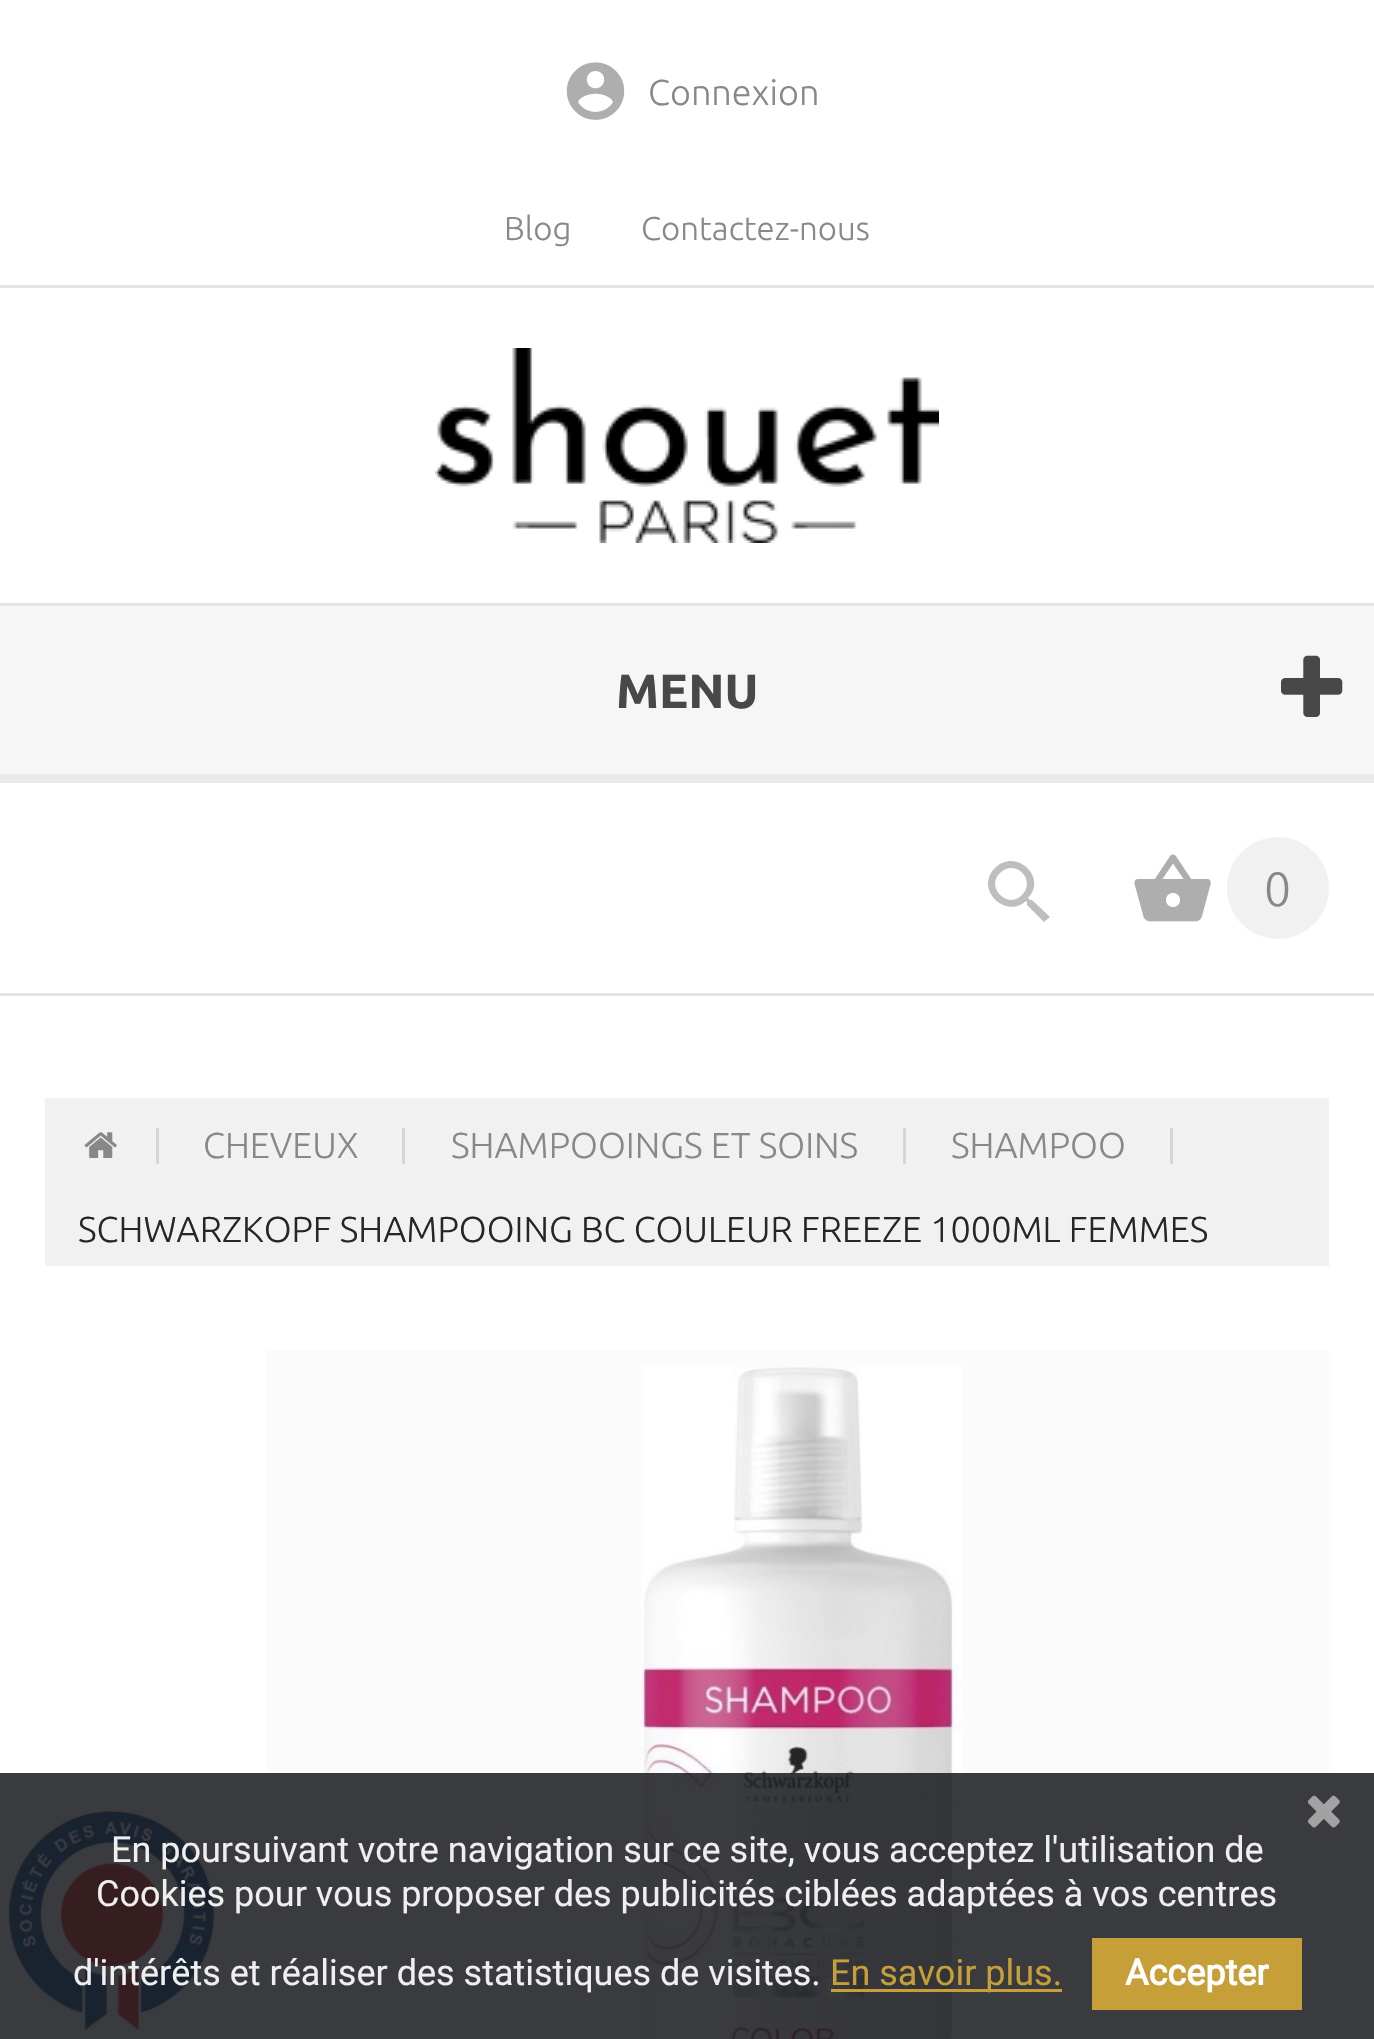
void draw(SkCanvas* canvas) {
    SkPaint paint;
    paint.setAntiAlias(true);
    canvas->clear(0xFFFFFFFF);
    paint.setColor(0xFFE4E4E4);
    canvas->drawRect(SkRect::MakeXYWH(0, 285, 1374, 3), paint);
    canvas->drawImageRect(SkImages::DeferredFromEncodedData(SkData::MakeFromFileName("img1.png")), SkRect::MakeXYWH(566, 62, 59, 58), SkSamplingOptions());
    SkFont font1(fontMgr->matchFamilyStyle("Ubuntu", SkFontStyle(300, SkFontStyle::kNormal_Width, SkFontStyle::kUpright_Slant)), 36);
    font1.setSubpixel(true);
    paint.setColor(0xFF888888);
    canvas->drawString("Connexion", 648, 105, font1, paint);
    SkFont font2(fontMgr->matchFamilyStyle("Ubuntu", SkFontStyle(300, SkFontStyle::kNormal_Width, SkFontStyle::kUpright_Slant)), 33);
    font2.setSubpixel(true);
    canvas->drawString("Blog", 504, 240, font2, paint);
    canvas->drawString("Contactez-nous", 641, 240, font2, paint);
    paint.setColor(0xFFE4E4E4);
    canvas->drawRect(SkRect::MakeXYWH(0, 993, 1374, 3), paint);
    canvas->drawRect(SkRect::MakeXYWH(0, 603, 1374, 3), paint);
    canvas->drawImageRect(SkImages::DeferredFromEncodedData(SkData::MakeFromFileName("img2.png")), SkRect::MakeXYWH(435, 348, 504, 195), SkSamplingOptions());
    paint.setColor(0xFFF6F6F6);
    canvas->drawRect(SkRect::MakeXYWH(0, 606, 1374, 168), paint);
    paint.setColor(0xFFE9E9E9);
    canvas->drawRect(SkRect::MakeXYWH(0, 774, 1374, 9), paint);
    SkFont font3(fontMgr->matchFamilyStyle("Ubuntu", SkFontStyle::Bold()), 48);
    font3.setSubpixel(true);
    paint.setColor(0xFF484848);
    canvas->drawString("MENU", 616, 708, font3, paint);
    canvas->drawImageRect(SkImages::DeferredFromEncodedData(SkData::MakeFromFileName("img3.png")), SkRect::MakeXYWH(1281, 655, 62, 62), SkSamplingOptions());
    paint.setColor(0xFFBEBEBE);
    canvas->drawPath(SkPathBuilder().moveTo(1032, 900).lineTo(1030, 900).lineTo(1028, 898).cubicTo(1048, 878, 1016, 847, 995, 868).cubicTo(974, 888, 1005, 920, 1026, 901).lineTo(1027, 902).lineTo(1027, 905).lineTo(1044, 922).lineTo(1050, 917).close().moveTo(1022, 895).cubicTo(1008, 910, 985, 887, 1000, 873).cubicTo(1015, 858, 1037, 880, 1022, 895).close().detach(), paint);
    canvas->drawImageRect(SkImages::DeferredFromEncodedData(SkData::MakeFromFileName("img4.png")), SkRect::MakeXYWH(1134, 854, 77, 68), SkSamplingOptions());
    paint.setColor(0xFFF1F1F1);
    canvas->drawCircle(1278, 888, 51, paint);
    SkFont font4(fontMgr->matchFamilyStyle("Ubuntu", SkFontStyle(300, SkFontStyle::kNormal_Width, SkFontStyle::kUpright_Slant)), 48);
    font4.setSubpixel(true);
    paint.setColor(0xFF888888);
    canvas->drawString("0", 1264, 906, font4, paint);
    paint.setColor(0xFFF1F1F1);
    canvas->drawRect(SkRect::MakeXYWH(45, 1098, 1284, 168), paint);
    paint.setColor(0xFFD6D4D4);
    canvas->drawRect(SkRect::MakeXYWH(156, 1128, 3, 36), paint);
    canvas->drawImageRect(SkImages::DeferredFromEncodedData(SkData::MakeFromFileName("img5.png")), SkRect::MakeXYWH(84, 1132, 33, 26), SkSamplingOptions());
    canvas->drawRect(SkRect::MakeXYWH(402, 1128, 3, 36), paint);
    paint.setColor(0xFF888888);
    canvas->drawString("CHEVEUX", 203, 1158, font1, paint);
    paint.setColor(0xFFD6D4D4);
    canvas->drawRect(SkRect::MakeXYWH(903, 1128, 3, 36), paint);
    paint.setColor(0xFF888888);
    canvas->drawString("SHAMPOOINGS ET SOINS", 451, 1158, font1, paint);
    paint.setColor(0xFFD6D4D4);
    canvas->drawRect(SkRect::MakeXYWH(1170, 1128, 3, 36), paint);
    paint.setColor(0xFF888888);
    canvas->drawString("SHAMPOO", 951, 1158, font1, paint);
    paint.setColor(0xFF262626);
    canvas->drawString("SCHWARZKOPF SHAMPOOING BC COULEUR FREEZE 1000ML FEMMES", 78, 1242, font1, paint);
    paint.setColor(0xFFFBFBFB);
    canvas->drawRect(SkRect::MakeXYWH(267, 1350, 1062, 689), paint);
    canvas->drawImageRect(SkImages::DeferredFromEncodedData(SkData::MakeFromFileName("img6.png")), SkRect::MakeXYWH(641, 1367, 321, 672), SkSamplingOptions());
    canvas->drawImageRect(SkImages::DeferredFromEncodedData(SkData::MakeFromFileName("img7.png")), SkRect::MakeXYWH(8, 1811, 207, 220), SkSamplingOptions());
    paint.setColor(0xD917191C);
    canvas->drawRect(SkRect::MakeXYWH(0, 1773, 1374, 266), paint);
    canvas->drawImageRect(SkImages::DeferredFromEncodedData(SkData::MakeFromFileName("img8.png")), SkRect::MakeXYWH(1308, 1795, 32, 33), SkSamplingOptions());
    SkFont font5(fontMgr->matchFamilyStyle("Roboto", SkFontStyle::Normal()), 36);
    font5.setSubpixel(true);
    paint.setColor(0xFFEFEFEF);
    canvas->drawString("En poursuivant votre navigation sur ce site, vous acceptez l'utilisation de", 111, 1862, font5, paint);
    canvas->drawString("Cookies pour vous proposer des publicités ciblées adaptées à vos centres", 96, 1906, font5, paint);
    canvas->drawString("d'intérêts et réaliser des statistiques de visites.", 73, 1985, font5, paint);
    paint.setColor(0xFFC69F38);
    canvas->drawRect(SkRect::MakeXYWH(831, 1989, 231, 3), paint);
    canvas->drawString("En savoir plus.", 830, 1985, font5, paint);
    canvas->drawRect(SkRect::MakeXYWH(1092, 1938, 210, 72), paint);
    SkFont font6(fontMgr->matchFamilyStyle("Roboto", SkFontStyle::Bold()), 36);
    font6.setSubpixel(true);
    paint.setColor(0xFFFFFFFF);
    canvas->drawString("Accepter", 1125, 1985, font6, paint);
}
